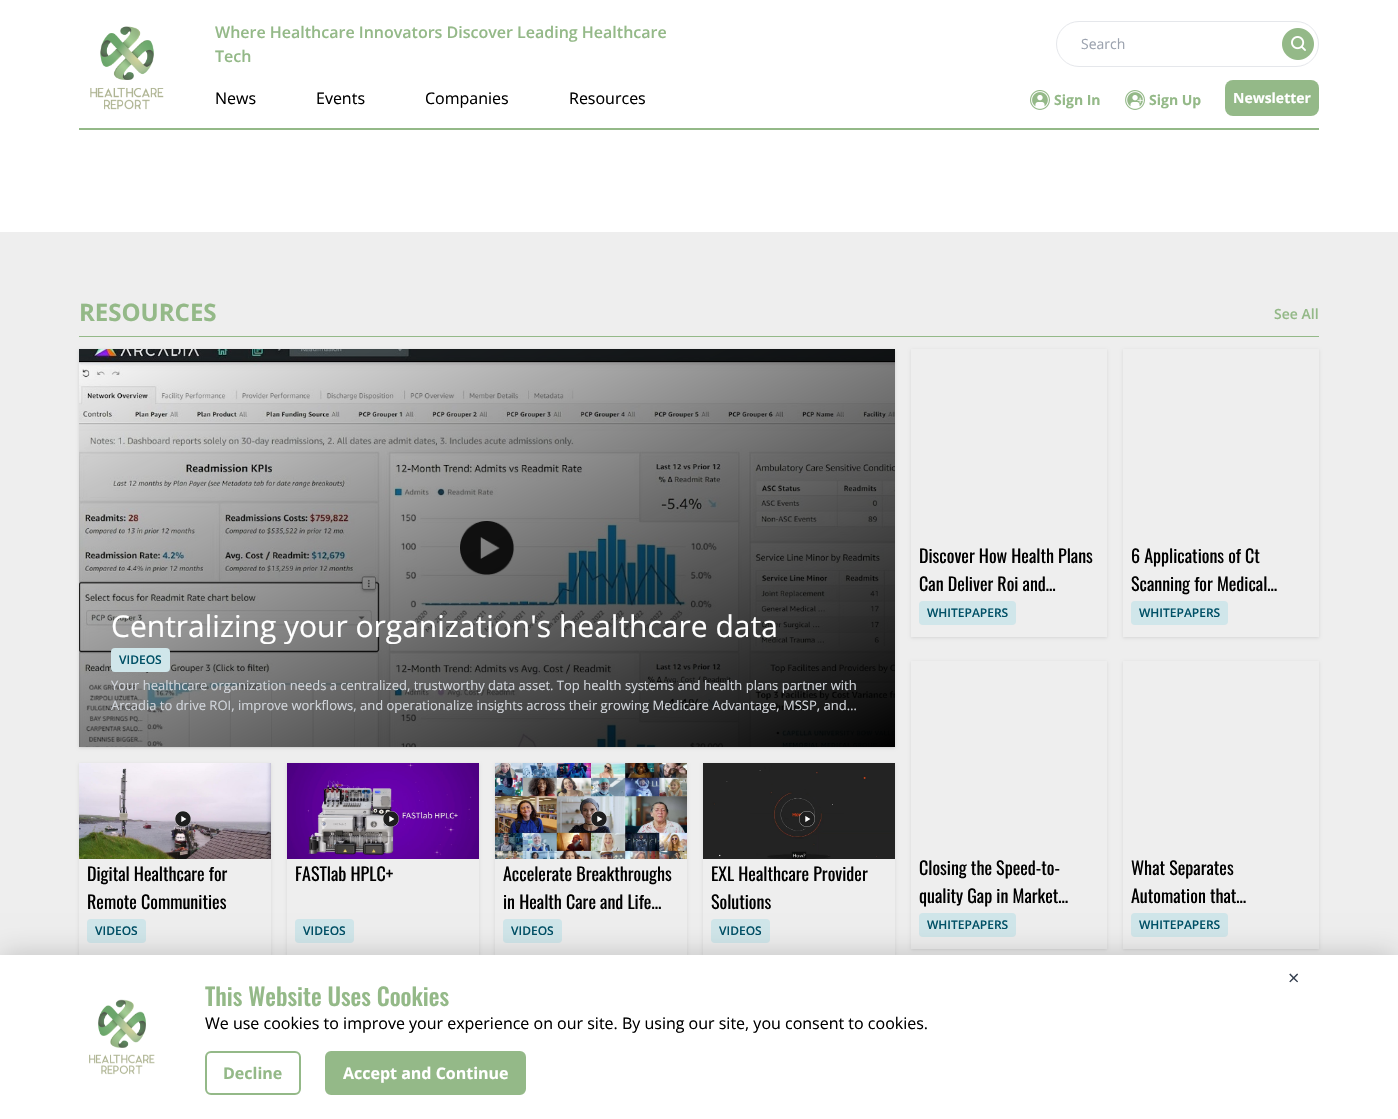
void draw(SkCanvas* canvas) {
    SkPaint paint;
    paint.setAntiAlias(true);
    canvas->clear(0xFFFFFFFF);
    paint.setColor(0xFF94B988);
    canvas->drawRect(SkRect::MakeXYWH(79, 128, 1240, 2), paint);
    canvas->drawImageRect(SkImages::DeferredFromEncodedData(SkData::MakeFromFileName("img1.png")), SkRect::MakeXYWH(90, 26, 74, 84), SkSamplingOptions());
    SkFont font1(fontMgr->matchFamilyStyle("Open Sans", SkFontStyle(600, SkFontStyle::kNormal_Width, SkFontStyle::kUpright_Slant)), 16);
    font1.setSubpixel(true);
    canvas->drawString("Where Healthcare Innovators Discover Leading Healthcare", 215, 38, font1, paint);
    canvas->drawString("Tech", 215, 62, font1, paint);
    paint.setStyle(SkPaint::kStroke_Style);
    paint.setStrokeWidth(1);
    paint.setColor(0xFFE5E7EB);
    canvas->drawRoundRect(SkRect::MakeXYWH(1056.5f, 21.5f, 262, 45), 22.5f, 22.5f, paint);
    SkFont font2(fontMgr->matchFamilyStyle("Open Sans", SkFontStyle::Normal()), 14);
    font2.setSubpixel(true);
    paint.setStyle(SkPaint::kFill_Style);
    paint.setColor(0xFF9CA3AF);
    canvas->drawString("Search", 1081, 49, font2, paint);
    canvas->drawImageRect(SkImages::DeferredFromEncodedData(SkData::MakeFromFileName("img2.png")), SkRect::MakeXYWH(1282, 28, 32, 32), SkSamplingOptions());
    SkFont font3(fontMgr->matchFamilyStyle("Open Sans", SkFontStyle::Normal()), 16);
    font3.setSubpixel(true);
    paint.setColor(0xFF000000);
    canvas->drawString("News", 215, 104, font3, paint);
    canvas->drawString("Events", 316, 104, font3, paint);
    canvas->drawString("Companies", 425, 104, font3, paint);
    canvas->drawString("Resources", 569, 104, font3, paint);
    canvas->drawImageRect(SkImages::DeferredFromEncodedData(SkData::MakeFromFileName("img3.png")), SkRect::MakeXYWH(1030, 90, 20, 20), SkSamplingOptions());
    SkFont font4(fontMgr->matchFamilyStyle("Open Sans", SkFontStyle::Bold()), 14);
    font4.setSubpixel(true);
    paint.setColor(0xFF94B988);
    canvas->drawString("Sign In", 1054, 105, font4, paint);
    canvas->drawImageRect(SkImages::DeferredFromEncodedData(SkData::MakeFromFileName("img4.png")), SkRect::MakeXYWH(1125, 90, 20, 20), SkSamplingOptions());
    canvas->drawString("Sign Up", 1149, 105, font4, paint);
    canvas->drawRoundRect(SkRect::MakeXYWH(1225, 80, 94, 36), 8, 8, paint);
    paint.setColor(0xFFFFFFFF);
    canvas->drawString("Newsletter", 1233, 103, font4, paint);
    paint.setColor(0xFFEEEEEE);
    canvas->drawRect(SkRect::MakeXYWH(0, 232, 1398, 723), paint);
    paint.setColor(0xFF94B988);
    canvas->drawRect(SkRect::MakeXYWH(79, 336, 1240, 1), paint);
    SkFont font5(fontMgr->matchFamilyStyle("Open Sans", SkFontStyle::Bold()), 24);
    font5.setSubpixel(true);
    canvas->drawString("RESOURCES", 79, 321, font5, paint);
    SkFont font6(fontMgr->matchFamilyStyle("Open Sans", SkFontStyle(600, SkFontStyle::kNormal_Width, SkFontStyle::kUpright_Slant)), 14);
    font6.setSubpixel(true);
    canvas->drawString("See All", 1274, 319, font6, paint);
    paint.setColor(0x1A000000);
    paint.setMaskFilter(SkMaskFilter::MakeBlur(kNormal_SkBlurStyle, 1));
    canvas->drawRect(SkRect::MakeXYWH(80, 351, 814, 396), paint);
    paint.setMaskFilter(nullptr);
    paint.setMaskFilter(SkMaskFilter::MakeBlur(kNormal_SkBlurStyle, 1.5f));
    canvas->drawRect(SkRect::MakeXYWH(79, 350, 816, 398), paint);
    paint.setMaskFilter(nullptr);
    canvas->drawImageRect(SkImages::DeferredFromEncodedData(SkData::MakeFromFileName("img5.png")), SkRect::MakeXYWH(79, 349, 816, 398), SkSamplingOptions());
    canvas->drawImageRect(SkImages::DeferredFromEncodedData(SkData::MakeFromFileName("img6.png")), SkRect::MakeXYWH(459, 521, 56, 55), SkSamplingOptions());
    {
        const SkColor colors[] = {0x00000000, 0xFF000000};
        const float stops[] = {0, 1};
        const SkPoint ends[] = {{330, 226}, {644, 870}};
        paint.setShader(SkGradientShader::MakeLinear(ends, colors, stops, 2, SkTileMode::kClamp));
        paint.setAlpha(255);
    }
    canvas->drawRect(SkRect::MakeXYWH(79, 349, 816, 398), paint);
    canvas->save();
    canvas->clipRect(SkRect::MakeXYWH(111, 608, 752, 36));
    SkFont font7(fontMgr->matchFamilyStyle("Open Sans", SkFontStyle::Normal()), 30);
    font7.setSubpixel(true);
    paint.setShader(nullptr);
    paint.setColor(0xFFFFFFFF);
    canvas->drawString("Centralizing your organization's healthcare data", 111, 637, font7, paint);
    canvas->restore();
    paint.setColor(0xFFD0E6EA);
    canvas->drawRoundRect(SkRect::MakeXYWH(111, 648, 59, 24), 4, 4, paint);
    SkFont font8(fontMgr->matchFamilyStyle("Open Sans", SkFontStyle(600, SkFontStyle::kNormal_Width, SkFontStyle::kUpright_Slant)), 12);
    font8.setSubpixel(true);
    paint.setColor(0xFF005066);
    canvas->drawString("VIDEOS", 119, 664, font8, paint);
    SkFont font9(fontMgr->matchFamilyStyle("Open Sans", SkFontStyle::Normal()), 13);
    font9.setSubpixel(true);
    paint.setColor(0xFFD1D5DB);
    canvas->drawString("Your healthcare organization needs a centralized, trustworthy data asset. Top health systems and health plans partner with", 111, 690, font9, paint);
    canvas->drawString("Arcadia to drive ROI, improve workflows, and operationalize insights across their growing Medicare Advantage, MSSP, and…", 111, 710, font9, paint);
    canvas->save();
    canvas->clipPath(SkPathBuilder(SkPathFillType::kEvenOdd).moveTo(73, 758).lineTo(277, 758).lineTo(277, 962).lineTo(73, 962).close().moveTo(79, 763).lineTo(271, 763).lineTo(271, 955).lineTo(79, 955).close().detach(), true);
    paint.setColor(0x1A000000);
    paint.setMaskFilter(SkMaskFilter::MakeBlur(kNormal_SkBlurStyle, 1.5f));
    canvas->drawRect(SkRect::MakeXYWH(79, 764, 192, 192), paint);
    paint.setMaskFilter(nullptr);
    canvas->restore();
    canvas->drawImageRect(SkImages::DeferredFromEncodedData(SkData::MakeFromFileName("img7.png")), SkRect::MakeXYWH(79, 763, 192, 96), SkSamplingOptions());
    canvas->drawImageRect(SkImages::DeferredFromEncodedData(SkData::MakeFromFileName("img8.png")), SkRect::MakeXYWH(175, 811, 16, 16), SkSamplingOptions());
    SkFont font10(fontMgr->matchFamilyStyle("Oswald", SkFontStyle::Normal()), 18);
    font10.setSubpixel(true);
    paint.setColor(0xFF000000);
    canvas->drawString("Digital Healthcare for", 87, 881, font10, paint);
    canvas->drawString("Remote Communities", 87, 909, font10, paint);
    paint.setColor(0xFFD0E6EA);
    canvas->drawRoundRect(SkRect::MakeXYWH(87, 919, 59, 24), 4, 4, paint);
    paint.setColor(0xFF005066);
    canvas->drawString("VIDEOS", 95, 935, font8, paint);
    canvas->save();
    canvas->clipPath(SkPathBuilder(SkPathFillType::kEvenOdd).moveTo(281, 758).lineTo(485, 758).lineTo(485, 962).lineTo(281, 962).close().moveTo(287, 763).lineTo(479, 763).lineTo(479, 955).lineTo(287, 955).close().detach(), true);
    paint.setColor(0x1A000000);
    paint.setMaskFilter(SkMaskFilter::MakeBlur(kNormal_SkBlurStyle, 1.5f));
    canvas->drawRect(SkRect::MakeXYWH(287, 764, 192, 192), paint);
    paint.setMaskFilter(nullptr);
    canvas->restore();
    canvas->drawImageRect(SkImages::DeferredFromEncodedData(SkData::MakeFromFileName("img9.png")), SkRect::MakeXYWH(287, 763, 192, 96), SkSamplingOptions());
    canvas->drawImageRect(SkImages::DeferredFromEncodedData(SkData::MakeFromFileName("img10.png")), SkRect::MakeXYWH(383, 811, 16, 16), SkSamplingOptions());
    paint.setColor(0xFF000000);
    canvas->drawString("FASTlab HPLC+", 295, 881, font10, paint);
    paint.setColor(0xFFD0E6EA);
    canvas->drawRoundRect(SkRect::MakeXYWH(295, 919, 59, 24), 4, 4, paint);
    paint.setColor(0xFF005066);
    canvas->drawString("VIDEOS", 303, 935, font8, paint);
    canvas->save();
    canvas->clipPath(SkPathBuilder(SkPathFillType::kEvenOdd).moveTo(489, 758).lineTo(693, 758).lineTo(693, 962).lineTo(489, 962).close().moveTo(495, 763).lineTo(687, 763).lineTo(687, 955).lineTo(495, 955).close().detach(), true);
    paint.setColor(0x1A000000);
    paint.setMaskFilter(SkMaskFilter::MakeBlur(kNormal_SkBlurStyle, 1.5f));
    canvas->drawRect(SkRect::MakeXYWH(495, 764, 192, 192), paint);
    paint.setMaskFilter(nullptr);
    canvas->restore();
    canvas->drawImageRect(SkImages::DeferredFromEncodedData(SkData::MakeFromFileName("img11.png")), SkRect::MakeXYWH(495, 763, 192, 96), SkSamplingOptions());
    canvas->drawImageRect(SkImages::DeferredFromEncodedData(SkData::MakeFromFileName("img12.png")), SkRect::MakeXYWH(591, 811, 16, 16), SkSamplingOptions());
    paint.setColor(0xFF000000);
    canvas->drawString("Accelerate Breakthroughs", 503, 881, font10, paint);
    canvas->drawString("in Health Care and Life…", 503, 909, font10, paint);
    paint.setColor(0xFFD0E6EA);
    canvas->drawRoundRect(SkRect::MakeXYWH(503, 919, 59, 24), 4, 4, paint);
    paint.setColor(0xFF005066);
    canvas->drawString("VIDEOS", 511, 935, font8, paint);
    canvas->save();
    canvas->clipPath(SkPathBuilder(SkPathFillType::kEvenOdd).moveTo(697, 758).lineTo(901, 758).lineTo(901, 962).lineTo(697, 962).close().moveTo(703, 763).lineTo(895, 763).lineTo(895, 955).lineTo(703, 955).close().detach(), true);
    paint.setColor(0x1A000000);
    paint.setMaskFilter(SkMaskFilter::MakeBlur(kNormal_SkBlurStyle, 1.5f));
    canvas->drawRect(SkRect::MakeXYWH(703, 764, 192, 192), paint);
    paint.setMaskFilter(nullptr);
    canvas->restore();
    canvas->drawImageRect(SkImages::DeferredFromEncodedData(SkData::MakeFromFileName("img13.png")), SkRect::MakeXYWH(703, 763, 192, 96), SkSamplingOptions());
    canvas->drawImageRect(SkImages::DeferredFromEncodedData(SkData::MakeFromFileName("img14.png")), SkRect::MakeXYWH(799, 811, 16, 16), SkSamplingOptions());
    paint.setColor(0xFF000000);
    canvas->drawString("EXL Healthcare Provider", 711, 881, font10, paint);
    canvas->drawString("Solutions", 711, 909, font10, paint);
    paint.setColor(0xFFD0E6EA);
    canvas->drawRoundRect(SkRect::MakeXYWH(711, 919, 59, 24), 4, 4, paint);
    paint.setColor(0xFF005066);
    canvas->drawString("VIDEOS", 719, 935, font8, paint);
    canvas->save();
    canvas->clipPath(SkPathBuilder(SkPathFillType::kEvenOdd).moveTo(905, 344).lineTo(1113, 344).lineTo(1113, 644).lineTo(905, 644).close().moveTo(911, 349).lineTo(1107, 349).lineTo(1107, 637).lineTo(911, 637).close().detach(), true);
    paint.setColor(0x1A000000);
    paint.setMaskFilter(SkMaskFilter::MakeBlur(kNormal_SkBlurStyle, 1.5f));
    canvas->drawRect(SkRect::MakeXYWH(911, 350, 196, 288), paint);
    paint.setMaskFilter(nullptr);
    canvas->restore();
    paint.setColor(0xFF000000);
    canvas->drawString("Discover How Health Plans", 919, 563, font10, paint);
    canvas->drawString("Can Deliver Roi and…", 919, 591, font10, paint);
    paint.setColor(0xFFD0E6EA);
    canvas->drawRoundRect(SkRect::MakeXYWH(919, 601, 97, 24), 4, 4, paint);
    paint.setColor(0xFF005066);
    canvas->drawString("WHITEPAPERS", 927, 617, font8, paint);
    canvas->save();
    canvas->clipPath(SkPathBuilder(SkPathFillType::kEvenOdd).moveTo(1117, 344).lineTo(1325, 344).lineTo(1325, 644).lineTo(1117, 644).close().moveTo(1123, 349).lineTo(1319, 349).lineTo(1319, 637).lineTo(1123, 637).close().detach(), true);
    paint.setColor(0x1A000000);
    paint.setMaskFilter(SkMaskFilter::MakeBlur(kNormal_SkBlurStyle, 1.5f));
    canvas->drawRect(SkRect::MakeXYWH(1123, 350, 196, 288), paint);
    paint.setMaskFilter(nullptr);
    canvas->restore();
    paint.setColor(0xFF000000);
    canvas->drawString("6 Applications of Ct", 1131, 563, font10, paint);
    canvas->drawString("Scanning for Medical…", 1131, 591, font10, paint);
    paint.setColor(0xFFD0E6EA);
    canvas->drawRoundRect(SkRect::MakeXYWH(1131, 601, 97, 24), 4, 4, paint);
    paint.setColor(0xFF005066);
    canvas->drawString("WHITEPAPERS", 1139, 617, font8, paint);
    canvas->save();
    canvas->clipPath(SkPathBuilder(SkPathFillType::kEvenOdd).moveTo(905, 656).lineTo(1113, 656).lineTo(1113, 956).lineTo(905, 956).close().moveTo(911, 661).lineTo(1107, 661).lineTo(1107, 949).lineTo(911, 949).close().detach(), true);
    paint.setColor(0x1A000000);
    paint.setMaskFilter(SkMaskFilter::MakeBlur(kNormal_SkBlurStyle, 1.5f));
    canvas->drawRect(SkRect::MakeXYWH(911, 662, 196, 288), paint);
    paint.setMaskFilter(nullptr);
    canvas->restore();
    paint.setColor(0xFF000000);
    canvas->drawString("Closing the Speed-to-", 919, 875, font10, paint);
    canvas->drawString("quality Gap in Market…", 919, 903, font10, paint);
    paint.setColor(0xFFD0E6EA);
    canvas->drawRoundRect(SkRect::MakeXYWH(919, 913, 97, 24), 4, 4, paint);
    paint.setColor(0xFF005066);
    canvas->drawString("WHITEPAPERS", 927, 929, font8, paint);
    canvas->save();
    canvas->clipPath(SkPathBuilder(SkPathFillType::kEvenOdd).moveTo(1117, 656).lineTo(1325, 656).lineTo(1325, 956).lineTo(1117, 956).close().moveTo(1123, 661).lineTo(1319, 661).lineTo(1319, 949).lineTo(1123, 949).close().detach(), true);
    paint.setColor(0x1A000000);
    paint.setMaskFilter(SkMaskFilter::MakeBlur(kNormal_SkBlurStyle, 1.5f));
    canvas->drawRect(SkRect::MakeXYWH(1123, 662, 196, 288), paint);
    paint.setMaskFilter(nullptr);
    canvas->restore();
    paint.setColor(0xFF000000);
    canvas->drawString("What Separates", 1131, 875, font10, paint);
    canvas->drawString("Automation that…", 1131, 903, font10, paint);
    paint.setColor(0xFFD0E6EA);
    canvas->drawRoundRect(SkRect::MakeXYWH(1131, 913, 97, 24), 4, 4, paint);
    paint.setColor(0xFF005066);
    canvas->drawString("WHITEPAPERS", 1139, 929, font8, paint);
    paint.setColor(0x33000000);
    paint.setMaskFilter(SkMaskFilter::MakeBlur(kNormal_SkBlurStyle, 14));
    canvas->drawRect(SkRect::MakeXYWH(0, 955, 1398, 164), paint);
    paint.setMaskFilter(nullptr);
    paint.setColor(0xFFFFFFFF);
    canvas->drawRect(SkRect::MakeXYWH(0, 955, 1398, 164), paint);
    SkFont font11(fontMgr->matchFamilyStyle("Open Sans", SkFontStyle::Normal()), 20);
    font11.setSubpixel(true);
    paint.setColor(0xFF374151);
    canvas->drawString("×", 1288, 985, font11, paint);
    canvas->drawImageRect(SkImages::DeferredFromEncodedData(SkData::MakeFromFileName("img15.png")), SkRect::MakeXYWH(89, 999, 66, 76), SkSamplingOptions());
    SkFont font12(fontMgr->matchFamilyStyle("Oswald", SkFontStyle(500, SkFontStyle::kNormal_Width, SkFontStyle::kUpright_Slant)), 24);
    font12.setSubpixel(true);
    paint.setColor(0xFF94B988);
    canvas->drawString("This Website Uses Cookies", 205, 1006, font12, paint);
    paint.setColor(0xFF000000);
    canvas->drawString("We use cookies to improve your experience on our site. By using our site, you consent to cookies.", 205, 1029, font3, paint);
    paint.setStyle(SkPaint::kStroke_Style);
    paint.setStrokeWidth(2);
    paint.setColor(0xFF94B988);
    canvas->drawRoundRect(SkRect::MakeXYWH(206, 1052, 94, 42), 5, 5, paint);
    SkFont font13(fontMgr->matchFamilyStyle("Open Sans", SkFontStyle::Bold()), 16);
    font13.setSubpixel(true);
    paint.setStyle(SkPaint::kFill_Style);
    canvas->drawString("Decline", 223, 1079, font13, paint);
    canvas->drawRoundRect(SkRect::MakeXYWH(326, 1052, 199, 42), 5, 5, paint);
    paint.setStyle(SkPaint::kStroke_Style);
    canvas->drawRoundRect(SkRect::MakeXYWH(326, 1052, 199, 42), 5, 5, paint);
    paint.setStyle(SkPaint::kFill_Style);
    paint.setColor(0xFFFFFFFF);
    canvas->drawString("Accept and Continue", 343, 1079, font13, paint);
}
